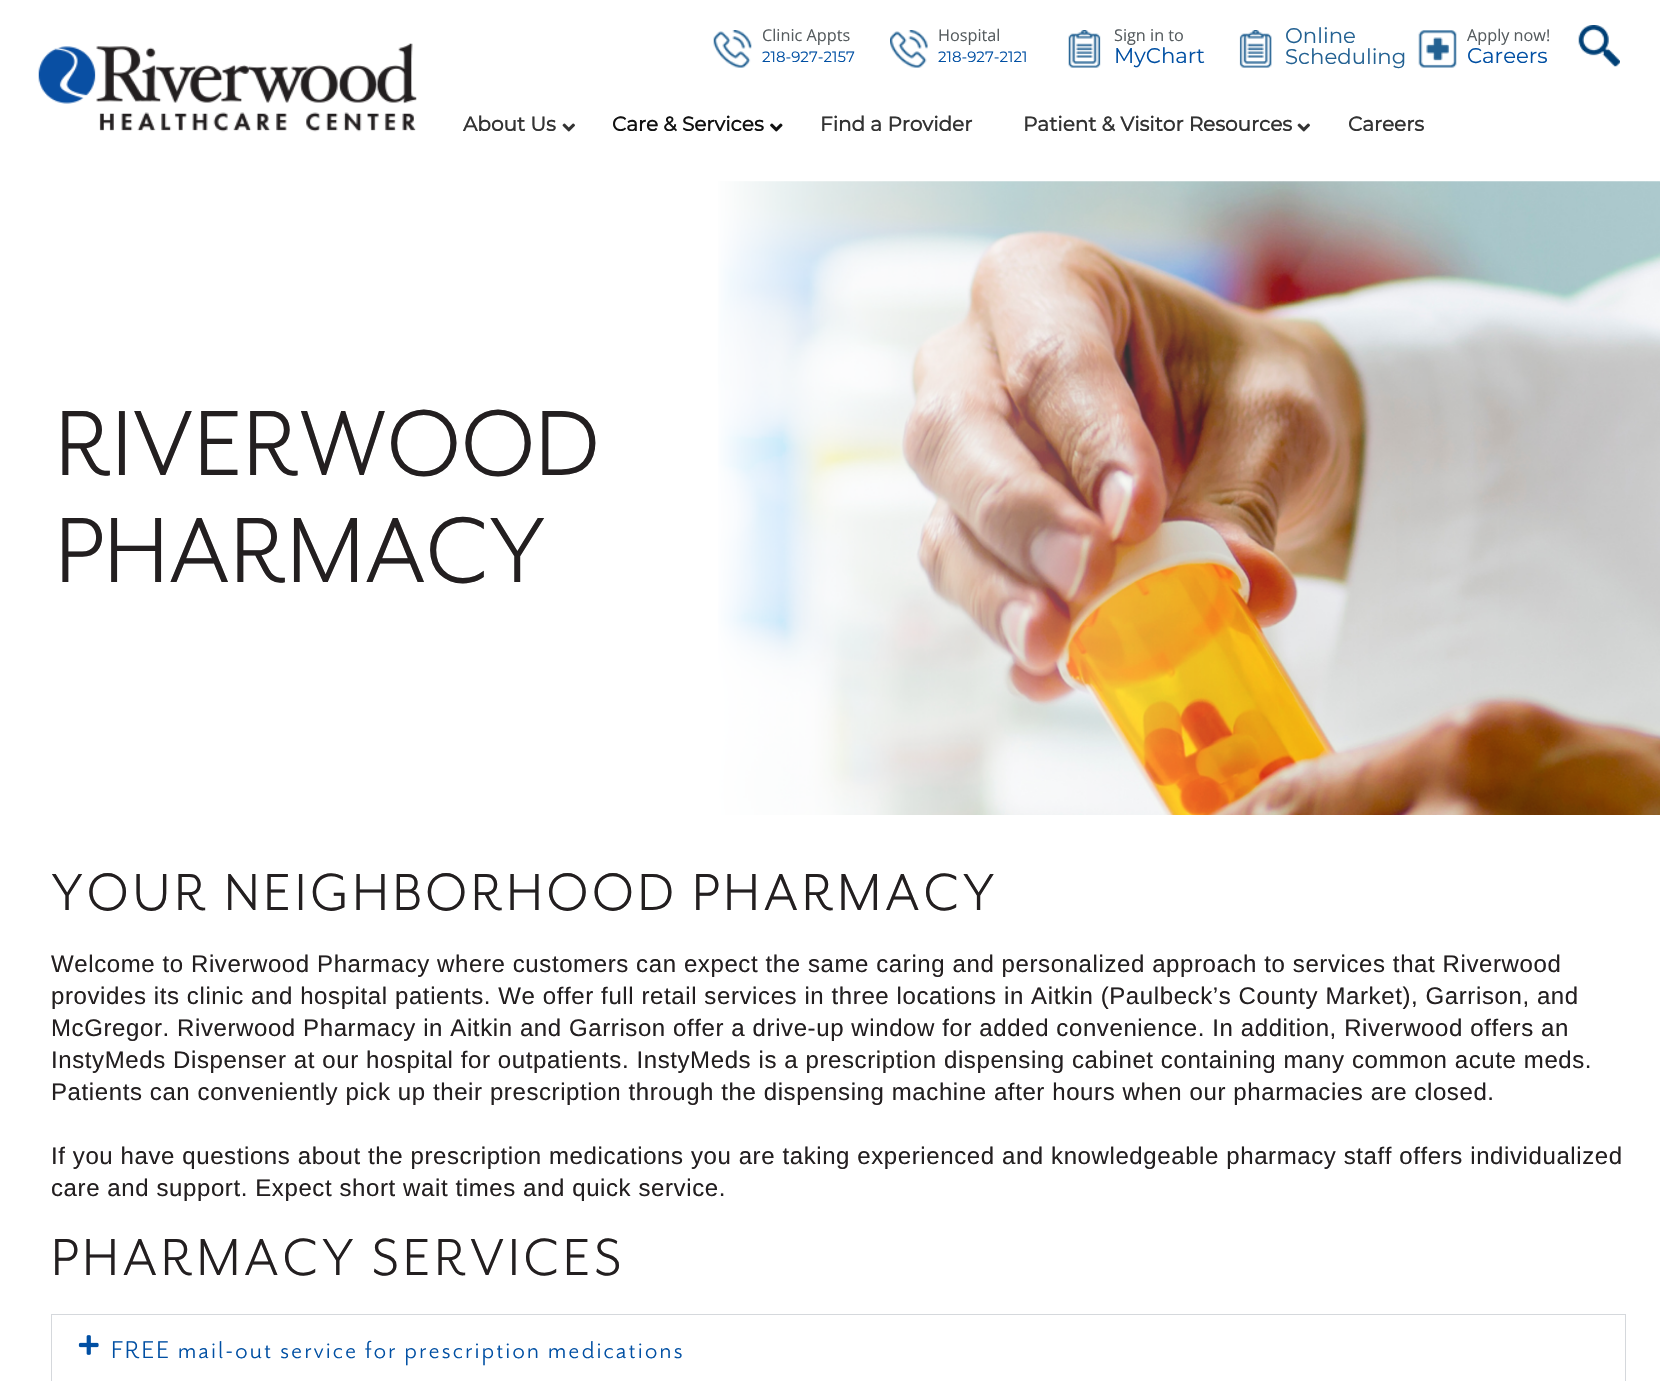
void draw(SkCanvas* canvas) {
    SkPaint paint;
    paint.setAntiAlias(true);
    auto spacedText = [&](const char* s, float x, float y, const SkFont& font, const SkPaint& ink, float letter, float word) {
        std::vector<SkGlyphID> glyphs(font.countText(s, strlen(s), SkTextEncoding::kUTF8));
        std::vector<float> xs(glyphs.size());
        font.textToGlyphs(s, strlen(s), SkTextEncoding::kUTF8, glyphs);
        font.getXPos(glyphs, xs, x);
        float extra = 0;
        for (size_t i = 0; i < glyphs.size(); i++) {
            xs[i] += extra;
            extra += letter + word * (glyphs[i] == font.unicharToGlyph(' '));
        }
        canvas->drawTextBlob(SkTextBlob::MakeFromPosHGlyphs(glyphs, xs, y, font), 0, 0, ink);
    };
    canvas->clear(0xFFFFFFFF);
    canvas->drawImageRect(SkImages::DeferredFromEncodedData(SkData::MakeFromFileName("img1.png")), SkRect::MakeXYWH(38, 43, 379, 89), SkSamplingOptions());
    canvas->drawImageRect(SkImages::DeferredFromEncodedData(SkData::MakeFromFileName("img2.png")), SkRect::MakeXYWH(713, 30, 39, 38), SkSamplingOptions());
    SkFont font1(fontMgr->matchFamilyStyle("Open Sans", SkFontStyle::Normal()), 16.25f);
    font1.setSubpixel(true);
    paint.setColor(0xFF565C5F);
    canvas->drawString("Clinic Appts", 762, 41, font1, paint);
    SkFont font2(fontMgr->matchFamilyStyle("Montserrat", SkFontStyle(100, SkFontStyle::kNormal_Width, SkFontStyle::kUpright_Slant)), 15);
    font2.setSubpixel(true);
    paint.setColor(0xFF004FA3);
    canvas->drawString("218-927-2157", 762, 62, font2, paint);
    canvas->drawImageRect(SkImages::DeferredFromEncodedData(SkData::MakeFromFileName("img3.png")), SkRect::MakeXYWH(890, 30, 38, 38), SkSamplingOptions());
    paint.setColor(0xFF565C5F);
    canvas->drawString("Hospital", 938, 41, font1, paint);
    paint.setColor(0xFF004FA3);
    canvas->drawString("218-927-2121", 938, 62, font2, paint);
    canvas->drawImageRect(SkImages::DeferredFromEncodedData(SkData::MakeFromFileName("img4.png")), SkRect::MakeXYWH(1068, 30, 33, 38), SkSamplingOptions());
    paint.setColor(0xFF565C5F);
    canvas->drawString("Sign in to", 1114, 41, font1, paint);
    SkFont font3(fontMgr->matchFamilyStyle("Montserrat", SkFontStyle(100, SkFontStyle::kNormal_Width, SkFontStyle::kUpright_Slant)), 21.25f);
    font3.setSubpixel(true);
    paint.setColor(0xFF004FA3);
    canvas->drawString("MyChart", 1114, 63, font3, paint);
    canvas->drawImageRect(SkImages::DeferredFromEncodedData(SkData::MakeFromFileName("img5.png")), SkRect::MakeXYWH(1239, 30, 33, 38), SkSamplingOptions());
    paint.setColor(0xFF236192);
    canvas->drawString("Online", 1285, 43, font3, paint);
    canvas->drawString("Scheduling", 1285, 64, font3, paint);
    canvas->drawImageRect(SkImages::DeferredFromEncodedData(SkData::MakeFromFileName("img6.png")), SkRect::MakeXYWH(1418, 30, 39, 38), SkSamplingOptions());
    paint.setColor(0xFF565C5F);
    canvas->drawString("Apply now!", 1467, 41, font1, paint);
    paint.setColor(0xFF004FA3);
    canvas->drawString("Careers", 1467, 63, font3, paint);
    canvas->drawImageRect(SkImages::DeferredFromEncodedData(SkData::MakeFromFileName("img7.png")), SkRect::MakeXYWH(1578, 25, 42, 42), SkSamplingOptions());
    SkFont font4(fontMgr->matchFamilyStyle("Montserrat", SkFontStyle::Bold()), 20);
    font4.setSubpixel(true);
    paint.setColor(0xFF333333);
    canvas->drawString("About Us", 463, 131, font4, paint);
    canvas->drawImageRect(SkImages::DeferredFromEncodedData(SkData::MakeFromFileName("img8.png")), SkRect::MakeXYWH(562, 123, 13, 9), SkSamplingOptions());
    paint.setColor(0xFF111111);
    canvas->drawString("Care & Services", 612, 131, font4, paint);
    canvas->drawImageRect(SkImages::DeferredFromEncodedData(SkData::MakeFromFileName("img9.png")), SkRect::MakeXYWH(770, 123, 13, 9), SkSamplingOptions());
    paint.setColor(0xFF333333);
    canvas->drawString("Find a Provider", 820, 131, font4, paint);
    canvas->drawString("Patient & Visitor Resources", 1023, 131, font4, paint);
    canvas->drawImageRect(SkImages::DeferredFromEncodedData(SkData::MakeFromFileName("img8.png")), SkRect::MakeXYWH(1297, 123, 13, 9), SkSamplingOptions());
    canvas->drawString("Careers", 1348, 131, font4, paint);
    canvas->drawImageRect(SkImages::DeferredFromEncodedData(SkData::MakeFromFileName("img10.png")), SkRect::MakeXYWH(0, 181, 1660, 634), SkSamplingOptions());
    SkFont font5(fontMgr->matchFamilyStyle("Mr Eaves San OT", SkFontStyle::Normal()), 106.5f);
    font5.setSubpixel(true);
    paint.setColor(0xFF231F20);
    canvas->drawString("RIVERWOOD", 55, 475, font5, paint);
    canvas->drawString("PHARMACY", 55, 582, font5, paint);
    SkFont font6(fontMgr->matchFamilyStyle("Mr Eaves San OT", SkFontStyle::Normal()), 60);
    font6.setSubpixel(true);
    spacedText("YOUR NEIGHBORHOOD PHARMACY", 51, 910, font6, paint, 3.75f, 0);
    SkFont font7(fontMgr->matchFamilyStyle("Liberation Sans", SkFontStyle::Normal()), 24);
    font7.setSubpixel(true);
    spacedText("Welcome to Riverwood Pharmacy where customers can expect the same caring and personalized approach to services that Riverwood", 51, 972, font7, paint, 0.6f, 0);
    spacedText("provides its clinic and hospital patients. We offer full retail services in three locations in Aitkin (Paulbeck’s County Market), Garrison, and", 51, 1004, font7, paint, 0.6f, 0);
    spacedText("McGregor. Riverwood Pharmacy in Aitkin and Garrison offer a drive-up window for added convenience. In addition, Riverwood offers an", 51, 1036, font7, paint, 0.6f, 0);
    spacedText("InstyMeds Dispenser at our hospital for outpatients. InstyMeds is a prescription dispensing cabinet containing many common acute meds.", 51, 1068, font7, paint, 0.6f, 0);
    spacedText("Patients can conveniently pick up their prescription through the dispensing machine after hours when our pharmacies are closed.", 51, 1100, font7, paint, 0.6f, 0);
    spacedText("If you have questions about the prescription medications you are taking experienced and knowledgeable pharmacy staff offers individualized", 51, 1164, font7, paint, 0.6f, 0);
    spacedText("care and support. Expect short wait times and quick service.", 51, 1196, font7, paint, 0.6f, 0);
    spacedText("PHARMACY SERVICES", 51, 1275, font6, paint, 3.75f, 0);
    paint.setStyle(SkPaint::kStroke_Style);
    paint.setStrokeWidth(1);
    paint.setColor(0xFFD5D8DC);
    canvas->drawRect(SkRect::MakeXYWH(51.5f, 1314.5f, 1574, 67), paint);
    canvas->drawImageRect(SkImages::DeferredFromEncodedData(SkData::MakeFromFileName("img11.png")), SkRect::MakeXYWH(78, 1335, 21, 20), SkSamplingOptions());
    SkFont font8(fontMgr->matchFamilyStyle("Mr Eaves San OT", SkFontStyle::Normal()), 28);
    font8.setSubpixel(true);
    paint.setStyle(SkPaint::kFill_Style);
    paint.setColor(0xFF004FA3);
    spacedText("FREE mail-out service for prescription medications", 111, 1358, font8, paint, 1.88f, 0);
}
